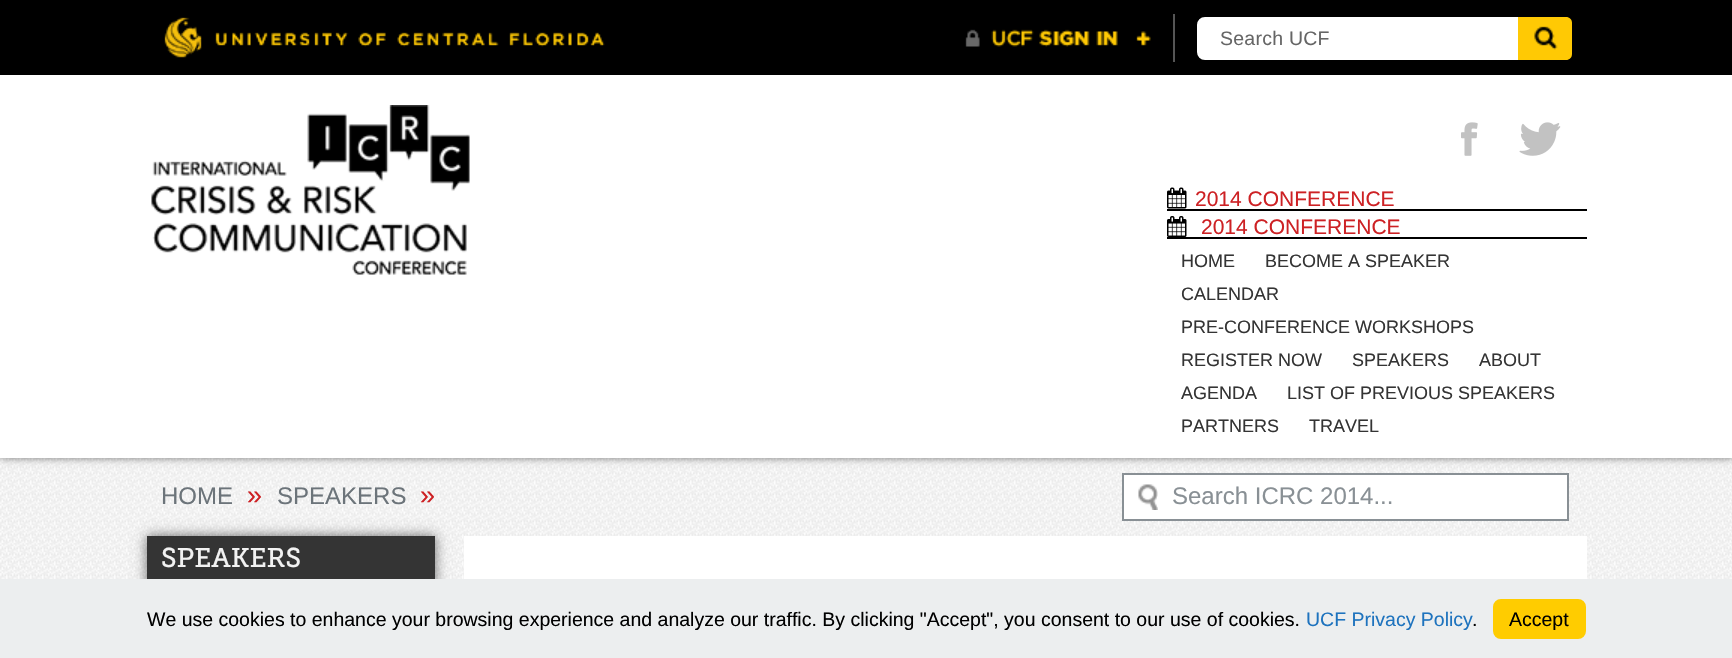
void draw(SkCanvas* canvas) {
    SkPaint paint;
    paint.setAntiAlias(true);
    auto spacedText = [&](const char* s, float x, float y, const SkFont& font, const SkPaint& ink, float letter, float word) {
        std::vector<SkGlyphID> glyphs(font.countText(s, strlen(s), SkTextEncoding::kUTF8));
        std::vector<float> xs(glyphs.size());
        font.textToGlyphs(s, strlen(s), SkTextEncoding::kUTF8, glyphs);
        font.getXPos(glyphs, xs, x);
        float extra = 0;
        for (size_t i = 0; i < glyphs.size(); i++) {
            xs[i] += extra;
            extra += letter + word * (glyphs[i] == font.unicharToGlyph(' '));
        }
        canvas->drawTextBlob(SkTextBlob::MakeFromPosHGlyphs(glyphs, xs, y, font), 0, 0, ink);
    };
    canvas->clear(0xFFFFFFFF);
    canvas->drawImageRect(SkImages::DeferredFromEncodedData(SkData::MakeFromFileName("img9.png")), SkRect::MakeXYWH(0, 458, 1732, 121), SkSamplingOptions());
    paint.setColor(0x80000000);
    paint.setMaskFilter(SkMaskFilter::MakeBlur(kNormal_SkBlurStyle, 4));
    canvas->drawRect(SkRect::MakeXYWH(0, 75, 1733, 383), paint);
    paint.setMaskFilter(nullptr);
    paint.setColor(0xFF000000);
    canvas->drawRect(SkRect::MakeXYWH(0, 0, 1732, 75), paint);
    canvas->drawImageRect(SkImages::DeferredFromEncodedData(SkData::MakeFromFileName("img1.png")), SkRect::MakeXYWH(164, 17, 441, 41), SkSamplingOptions());
    canvas->drawImageRect(SkImages::DeferredFromEncodedData(SkData::MakeFromFileName("img2.png")), SkRect::MakeXYWH(965, 29, 186, 18), SkSamplingOptions());
    paint.setColor(0xFF555555);
    canvas->drawRect(SkRect::MakeXYWH(1173, 14, 2, 48), paint);
    paint.setColor(0xFFFFFFFF);
    canvas->drawPath(SkPathBuilder().moveTo(1205, 18).lineTo(1534, 18).lineTo(1534, 59).lineTo(1205, 59).cubicTo(1201, 59, 1198, 56, 1198, 52).lineTo(1198, 25).cubicTo(1198, 21, 1201, 18, 1205, 18).close().detach(), paint);
    paint.setStyle(SkPaint::kStroke_Style);
    paint.setStrokeWidth(2);
    canvas->drawPath(SkPathBuilder().moveTo(1205, 18).lineTo(1534, 18).lineTo(1534, 59).lineTo(1205, 59).cubicTo(1201, 59, 1198, 56, 1198, 52).lineTo(1198, 25).cubicTo(1198, 21, 1201, 18, 1205, 18).close().detach(), paint);
    SkFont font1(fontMgr->matchFamilyStyle("Liberation Sans", SkFontStyle::Normal()), 19.5f);
    font1.setSubpixel(true);
    paint.setStyle(SkPaint::kFill_Style);
    paint.setColor(0xFF666666);
    spacedText("Search UCF", 1220, 45, font1, paint, 0.25f, 0);
    paint.setColor(0xFFFFC904);
    canvas->drawPath(SkPathBuilder().moveTo(1518, 17).lineTo(1566, 17).cubicTo(1569.5f, 17, 1572, 19.5f, 1572, 23).lineTo(1572, 54).cubicTo(1572, 57.5f, 1569.5f, 60, 1566, 60).lineTo(1518, 60).close().detach(), paint);
    canvas->drawImageRect(SkImages::DeferredFromEncodedData(SkData::MakeFromFileName("img3.png")), SkRect::MakeXYWH(1534, 26, 24, 24), SkSamplingOptions());
    paint.setColor(0xFFFFFFFF);
    canvas->drawRect(SkRect::MakeXYWH(0, 75, 1732, 383), paint);
    canvas->drawImageRect(SkImages::DeferredFromEncodedData(SkData::MakeFromFileName("img4.png")), SkRect::MakeXYWH(151, 105, 319, 170), SkSamplingOptions());
    canvas->drawImageRect(SkImages::DeferredFromEncodedData(SkData::MakeFromFileName("img5.png")), SkRect::MakeXYWH(1461, 122, 17, 34), SkSamplingOptions());
    canvas->drawImageRect(SkImages::DeferredFromEncodedData(SkData::MakeFromFileName("img6.png")), SkRect::MakeXYWH(1519, 122, 42, 34), SkSamplingOptions());
    paint.setColor(0xFF000000);
    canvas->drawRect(SkRect::MakeXYWH(1167, 209, 420, 2), paint);
    canvas->drawImageRect(SkImages::DeferredFromEncodedData(SkData::MakeFromFileName("img7.png")), SkRect::MakeXYWH(1167, 187, 20, 22), SkSamplingOptions());
    SkFont font2(fontMgr->matchFamilyStyle("Liberation Sans", SkFontStyle::Normal()), 21);
    font2.setSubpixel(true);
    paint.setColor(0xFFCD2124);
    canvas->drawString("2014 CONFERENCE", 1195, 206, font2, paint);
    paint.setColor(0xFF000000);
    canvas->drawRect(SkRect::MakeXYWH(1167, 237, 420, 2), paint);
    canvas->drawImageRect(SkImages::DeferredFromEncodedData(SkData::MakeFromFileName("img8.png")), SkRect::MakeXYWH(1167, 216, 20, 21), SkSamplingOptions());
    paint.setColor(0xFFCD2124);
    canvas->drawString("2014 CONFERENCE", 1201, 234, font2, paint);
    SkFont font3(fontMgr->matchFamilyStyle("Liberation Sans", SkFontStyle::Normal()), 18);
    font3.setSubpixel(true);
    paint.setColor(0xFF343434);
    canvas->drawString("HOME", 1181, 267, font3, paint);
    canvas->drawString("BECOME A SPEAKER", 1265, 267, font3, paint);
    canvas->drawString("CALENDAR", 1181, 300, font3, paint);
    canvas->drawString("PRE-CONFERENCE WORKSHOPS", 1181, 333, font3, paint);
    canvas->drawString("REGISTER NOW", 1181, 366, font3, paint);
    canvas->drawString("SPEAKERS", 1352, 366, font3, paint);
    canvas->drawString("ABOUT", 1479, 366, font3, paint);
    canvas->drawString("AGENDA", 1181, 399, font3, paint);
    canvas->drawString("LIST OF PREVIOUS SPEAKERS", 1287, 399, font3, paint);
    canvas->drawString("PARTNERS", 1181, 432, font3, paint);
    canvas->drawString("TRAVEL", 1309, 432, font3, paint);
    SkFont font4(fontMgr->matchFamilyStyle("Liberation Sans", SkFontStyle::Normal()), 24);
    font4.setSubpixel(true);
    paint.setColor(0xFF6C747A);
    canvas->drawString("HOME", 161, 504, font4, paint);
    SkFont font5(fontMgr->matchFamilyStyle("Liberation Sans", SkFontStyle::Normal()), 27);
    font5.setSubpixel(true);
    paint.setColor(0xFFCD2124);
    canvas->drawString("»", 247, 504, font5, paint);
    paint.setColor(0xFF6C747A);
    canvas->drawString("SPEAKERS", 277, 504, font4, paint);
    paint.setColor(0xFFCD2124);
    canvas->drawString("»", 420, 504, font5, paint);
    paint.setColor(0xFFFFFFFF);
    canvas->drawRect(SkRect::MakeXYWH(1124, 475, 443, 44), paint);
    canvas->drawImageRect(SkImages::DeferredFromEncodedData(SkData::MakeFromFileName("img10.png")), SkRect::MakeXYWH(1138, 484, 20, 26), SkSamplingOptions());
    paint.setStyle(SkPaint::kStroke_Style);
    paint.setColor(0xFF899095);
    canvas->drawRect(SkRect::MakeXYWH(1123, 474, 445, 46), paint);
    paint.setStyle(SkPaint::kFill_Style);
    canvas->drawString("Search ICRC 2014...", 1172, 504, font4, paint);
    paint.setColor(0x4D000000);
    paint.setMaskFilter(SkMaskFilter::MakeBlur(kNormal_SkBlurStyle, 6));
    canvas->drawRect(SkRect::MakeXYWH(147, 536, 288, 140), paint);
    paint.setMaskFilter(nullptr);
    paint.setMaskFilter(SkMaskFilter::MakeBlur(kNormal_SkBlurStyle, 6));
    canvas->drawRect(SkRect::MakeXYWH(147, 536, 288, 51), paint);
    paint.setMaskFilter(nullptr);
    paint.setColor(0xFF343434);
    canvas->drawRect(SkRect::MakeXYWH(147, 536, 288, 43), paint);
    SkFont font6(fontMgr->matchFamilyStyle("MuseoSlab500", SkFontStyle::Normal()), 27);
    font6.setSubpixel(true);
    paint.setColor(0xFFF2F2F2);
    canvas->drawString("SPEAKERS", 161, 567, font6, paint);
    paint.setColor(0xFFFFFFFF);
    canvas->drawRect(SkRect::MakeXYWH(464, 536, 1123, 43), paint);
    paint.setColor(0xFFECEEEF);
    canvas->drawRect(SkRect::MakeXYWH(0, 579, 1732, 79), paint);
    paint.setColor(0xFF000000);
    canvas->drawString("We use cookies to enhance your browsing experience and analyze our traffic. By clicking \"Accept\", you consent to our use of cookies.", 147, 626, font1, paint);
    paint.setColor(0xFF1E73BE);
    canvas->drawString("UCF Privacy Policy", 1306, 626, font1, paint);
    paint.setColor(0xFF000000);
    canvas->drawString(".", 1472, 626, font1, paint);
    paint.setColor(0xFFFFCC00);
    canvas->drawRoundRect(SkRect::MakeXYWH(1494, 600, 91, 38), 7, 7, paint);
    paint.setStyle(SkPaint::kStroke_Style);
    canvas->drawRoundRect(SkRect::MakeXYWH(1494, 600, 91, 38), 7, 7, paint);
    paint.setStyle(SkPaint::kFill_Style);
    paint.setColor(0xFF000000);
    canvas->drawString("Accept", 1509, 626, font1, paint);
}
